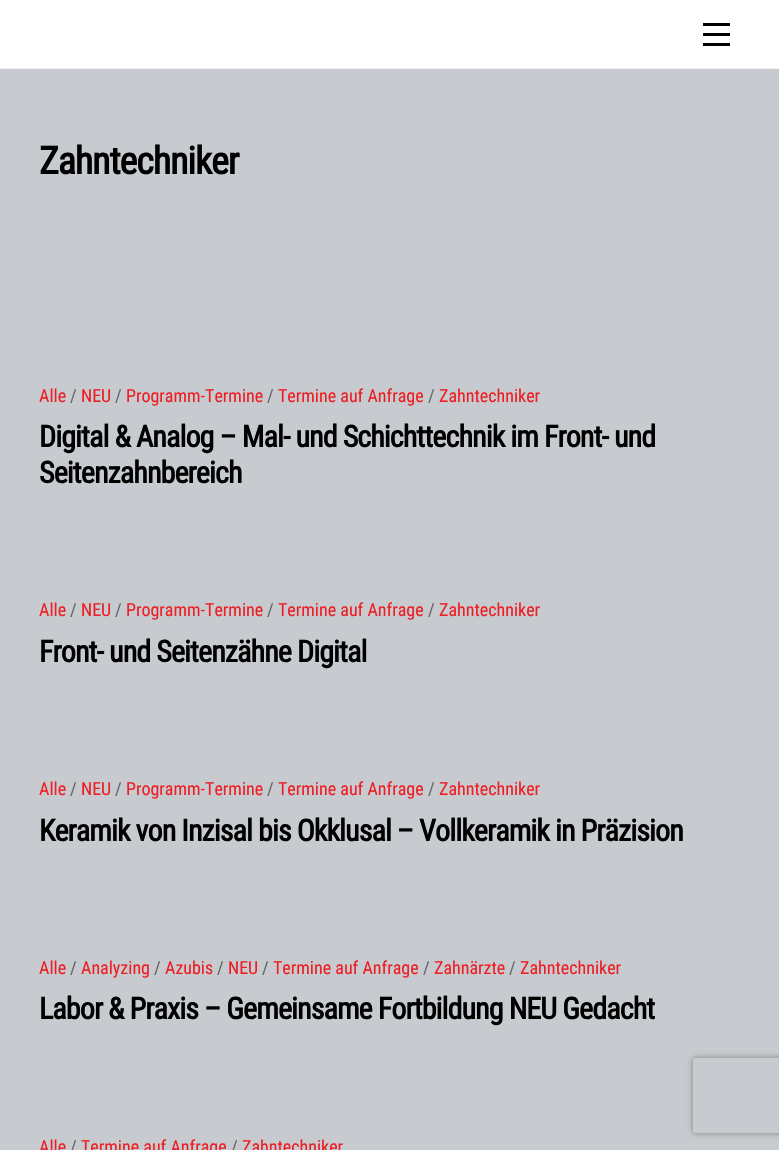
void draw(SkCanvas* canvas) {
    SkPaint paint;
    paint.setAntiAlias(true);
    auto spacedText = [&](const char* s, float x, float y, const SkFont& font, const SkPaint& ink, float letter, float word) {
        std::vector<SkGlyphID> glyphs(font.countText(s, strlen(s), SkTextEncoding::kUTF8));
        std::vector<float> xs(glyphs.size());
        font.textToGlyphs(s, strlen(s), SkTextEncoding::kUTF8, glyphs);
        font.getXPos(glyphs, xs, x);
        float extra = 0;
        for (size_t i = 0; i < glyphs.size(); i++) {
            xs[i] += extra;
            extra += letter + word * (glyphs[i] == font.unicharToGlyph(' '));
        }
        canvas->drawTextBlob(SkTextBlob::MakeFromPosHGlyphs(glyphs, xs, y, font), 0, 0, ink);
    };
    canvas->clear(0xFFC7CBCF);
    paint.setColor(0xFFFFFFFF);
    canvas->drawRect(SkRect::MakeXYWH(0, 0, 779, 68), paint);
    paint.setColor(0xFFF2F2F2);
    canvas->drawRect(SkRect::MakeXYWH(0, 68, 779, 1), paint);
    paint.setColor(0xFF000000);
    canvas->drawRect(SkRect::MakeXYWH(703, 43, 27, 3), paint);
    canvas->drawRect(SkRect::MakeXYWH(703, 23, 27, 3), paint);
    canvas->drawRect(SkRect::MakeXYWH(703, 33, 27, 3), paint);
    SkFont font1(fontMgr->matchFamilyStyle("Roboto Condensed", SkFontStyle::Bold()), 38);
    font1.setSubpixel(true);
    spacedText("Zahntechniker", 39, 174, font1, paint, -1.1f, 0);
    SkFont font2(fontMgr->matchFamilyStyle("Roboto Condensed", SkFontStyle::Normal()), 18);
    font2.setSubpixel(true);
    paint.setColor(0xFFED1E24);
    canvas->drawString("Alle", 39, 402, font2, paint);
    paint.setColor(0xFF666666);
    canvas->drawString("/", 70, 402, font2, paint);
    paint.setColor(0xFFED1E24);
    canvas->drawString("NEU", 81, 402, font2, paint);
    paint.setColor(0xFF666666);
    canvas->drawString("/", 115, 402, font2, paint);
    paint.setColor(0xFFED1E24);
    canvas->drawString("Programm-Termine", 126, 402, font2, paint);
    paint.setColor(0xFF666666);
    canvas->drawString("/", 267, 402, font2, paint);
    paint.setColor(0xFFED1E24);
    canvas->drawString("Termine auf Anfrage", 278, 402, font2, paint);
    paint.setColor(0xFF666666);
    canvas->drawString("/", 428, 402, font2, paint);
    paint.setColor(0xFFED1E24);
    canvas->drawString("Zahntechniker", 439, 402, font2, paint);
    SkFont font3(fontMgr->matchFamilyStyle("Roboto Condensed", SkFontStyle::Bold()), 30);
    font3.setSubpixel(true);
    paint.setColor(0xFF000000);
    spacedText("Digital & Analog – Mal- und Schichttechnik im Front- und", 39, 447, font3, paint, -0.9f, 0);
    spacedText("Seitenzahnbereich", 39, 483, font3, paint, -0.9f, 0);
    paint.setColor(0xFFED1E24);
    canvas->drawString("Alle", 39, 616, font2, paint);
    paint.setColor(0xFF666666);
    canvas->drawString("/", 70, 616, font2, paint);
    paint.setColor(0xFFED1E24);
    canvas->drawString("NEU", 81, 616, font2, paint);
    paint.setColor(0xFF666666);
    canvas->drawString("/", 115, 616, font2, paint);
    paint.setColor(0xFFED1E24);
    canvas->drawString("Programm-Termine", 126, 616, font2, paint);
    paint.setColor(0xFF666666);
    canvas->drawString("/", 267, 616, font2, paint);
    paint.setColor(0xFFED1E24);
    canvas->drawString("Termine auf Anfrage", 278, 616, font2, paint);
    paint.setColor(0xFF666666);
    canvas->drawString("/", 428, 616, font2, paint);
    paint.setColor(0xFFED1E24);
    canvas->drawString("Zahntechniker", 439, 616, font2, paint);
    paint.setColor(0xFF000000);
    spacedText("Front- und Seitenzähne Digital", 39, 662, font3, paint, -0.9f, 0);
    paint.setColor(0xFFED1E24);
    canvas->drawString("Alle", 39, 795, font2, paint);
    paint.setColor(0xFF666666);
    canvas->drawString("/", 70, 795, font2, paint);
    paint.setColor(0xFFED1E24);
    canvas->drawString("NEU", 81, 795, font2, paint);
    paint.setColor(0xFF666666);
    canvas->drawString("/", 115, 795, font2, paint);
    paint.setColor(0xFFED1E24);
    canvas->drawString("Programm-Termine", 126, 795, font2, paint);
    paint.setColor(0xFF666666);
    canvas->drawString("/", 267, 795, font2, paint);
    paint.setColor(0xFFED1E24);
    canvas->drawString("Termine auf Anfrage", 278, 795, font2, paint);
    paint.setColor(0xFF666666);
    canvas->drawString("/", 428, 795, font2, paint);
    paint.setColor(0xFFED1E24);
    canvas->drawString("Zahntechniker", 439, 795, font2, paint);
    paint.setColor(0xFF000000);
    spacedText("Keramik von Inzisal bis Okklusal – Vollkeramik in Präzision", 39, 841, font3, paint, -0.9f, 0);
    paint.setColor(0xFFED1E24);
    canvas->drawString("Alle", 39, 974, font2, paint);
    paint.setColor(0xFF666666);
    canvas->drawString("/", 70, 974, font2, paint);
    paint.setColor(0xFFED1E24);
    canvas->drawString("Analyzing", 81, 974, font2, paint);
    paint.setColor(0xFF666666);
    canvas->drawString("/", 154, 974, font2, paint);
    paint.setColor(0xFFED1E24);
    canvas->drawString("Azubis", 165, 974, font2, paint);
    paint.setColor(0xFF666666);
    canvas->drawString("/", 217, 974, font2, paint);
    paint.setColor(0xFFED1E24);
    canvas->drawString("NEU", 228, 974, font2, paint);
    paint.setColor(0xFF666666);
    canvas->drawString("/", 262, 974, font2, paint);
    paint.setColor(0xFFED1E24);
    canvas->drawString("Termine auf Anfrage", 273, 974, font2, paint);
    paint.setColor(0xFF666666);
    canvas->drawString("/", 423, 974, font2, paint);
    paint.setColor(0xFFED1E24);
    canvas->drawString("Zahnärzte", 434, 974, font2, paint);
    paint.setColor(0xFF666666);
    canvas->drawString("/", 509, 974, font2, paint);
    paint.setColor(0xFFED1E24);
    canvas->drawString("Zahntechniker", 520, 974, font2, paint);
    paint.setColor(0xFF000000);
    spacedText("Labor & Praxis – Gemeinsame Fortbildung NEU Gedacht", 39, 1019, font3, paint, -0.9f, 0);
    paint.setColor(0xFFED1E24);
    canvas->drawString("Alle", 39, 1153, font2, paint);
    paint.setColor(0xFF666666);
    canvas->drawString("/", 70, 1153, font2, paint);
    paint.setColor(0xFFED1E24);
    canvas->drawString("Termine auf Anfrage", 81, 1153, font2, paint);
    paint.setColor(0xFF666666);
    canvas->drawString("/", 231, 1153, font2, paint);
    paint.setColor(0xFFED1E24);
    canvas->drawString("Zahntechniker", 242, 1153, font2, paint);
    canvas->save();
    canvas->clipPath(SkPathBuilder(SkPathFillType::kEvenOdd).moveTo(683, 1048).lineTo(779, 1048).lineTo(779, 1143).lineTo(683, 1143).close().moveTo(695.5f, 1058).lineTo(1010.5f, 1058).cubicTo(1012, 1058, 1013, 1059, 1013, 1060.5f).lineTo(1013, 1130.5f).cubicTo(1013, 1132, 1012, 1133, 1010.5f, 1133).lineTo(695.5f, 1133).cubicTo(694, 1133, 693, 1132, 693, 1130.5f).lineTo(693, 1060.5f).cubicTo(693, 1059, 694, 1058, 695.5f, 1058).close().detach(), true);
    paint.setColor(0xFF808080);
    paint.setMaskFilter(SkMaskFilter::MakeBlur(kNormal_SkBlurStyle, 3));
    canvas->drawRoundRect(SkRect::MakeXYWH(693, 1058, 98, 75), 2.5f, 2.5f, paint);
    paint.setMaskFilter(nullptr);
    canvas->restore();
}
